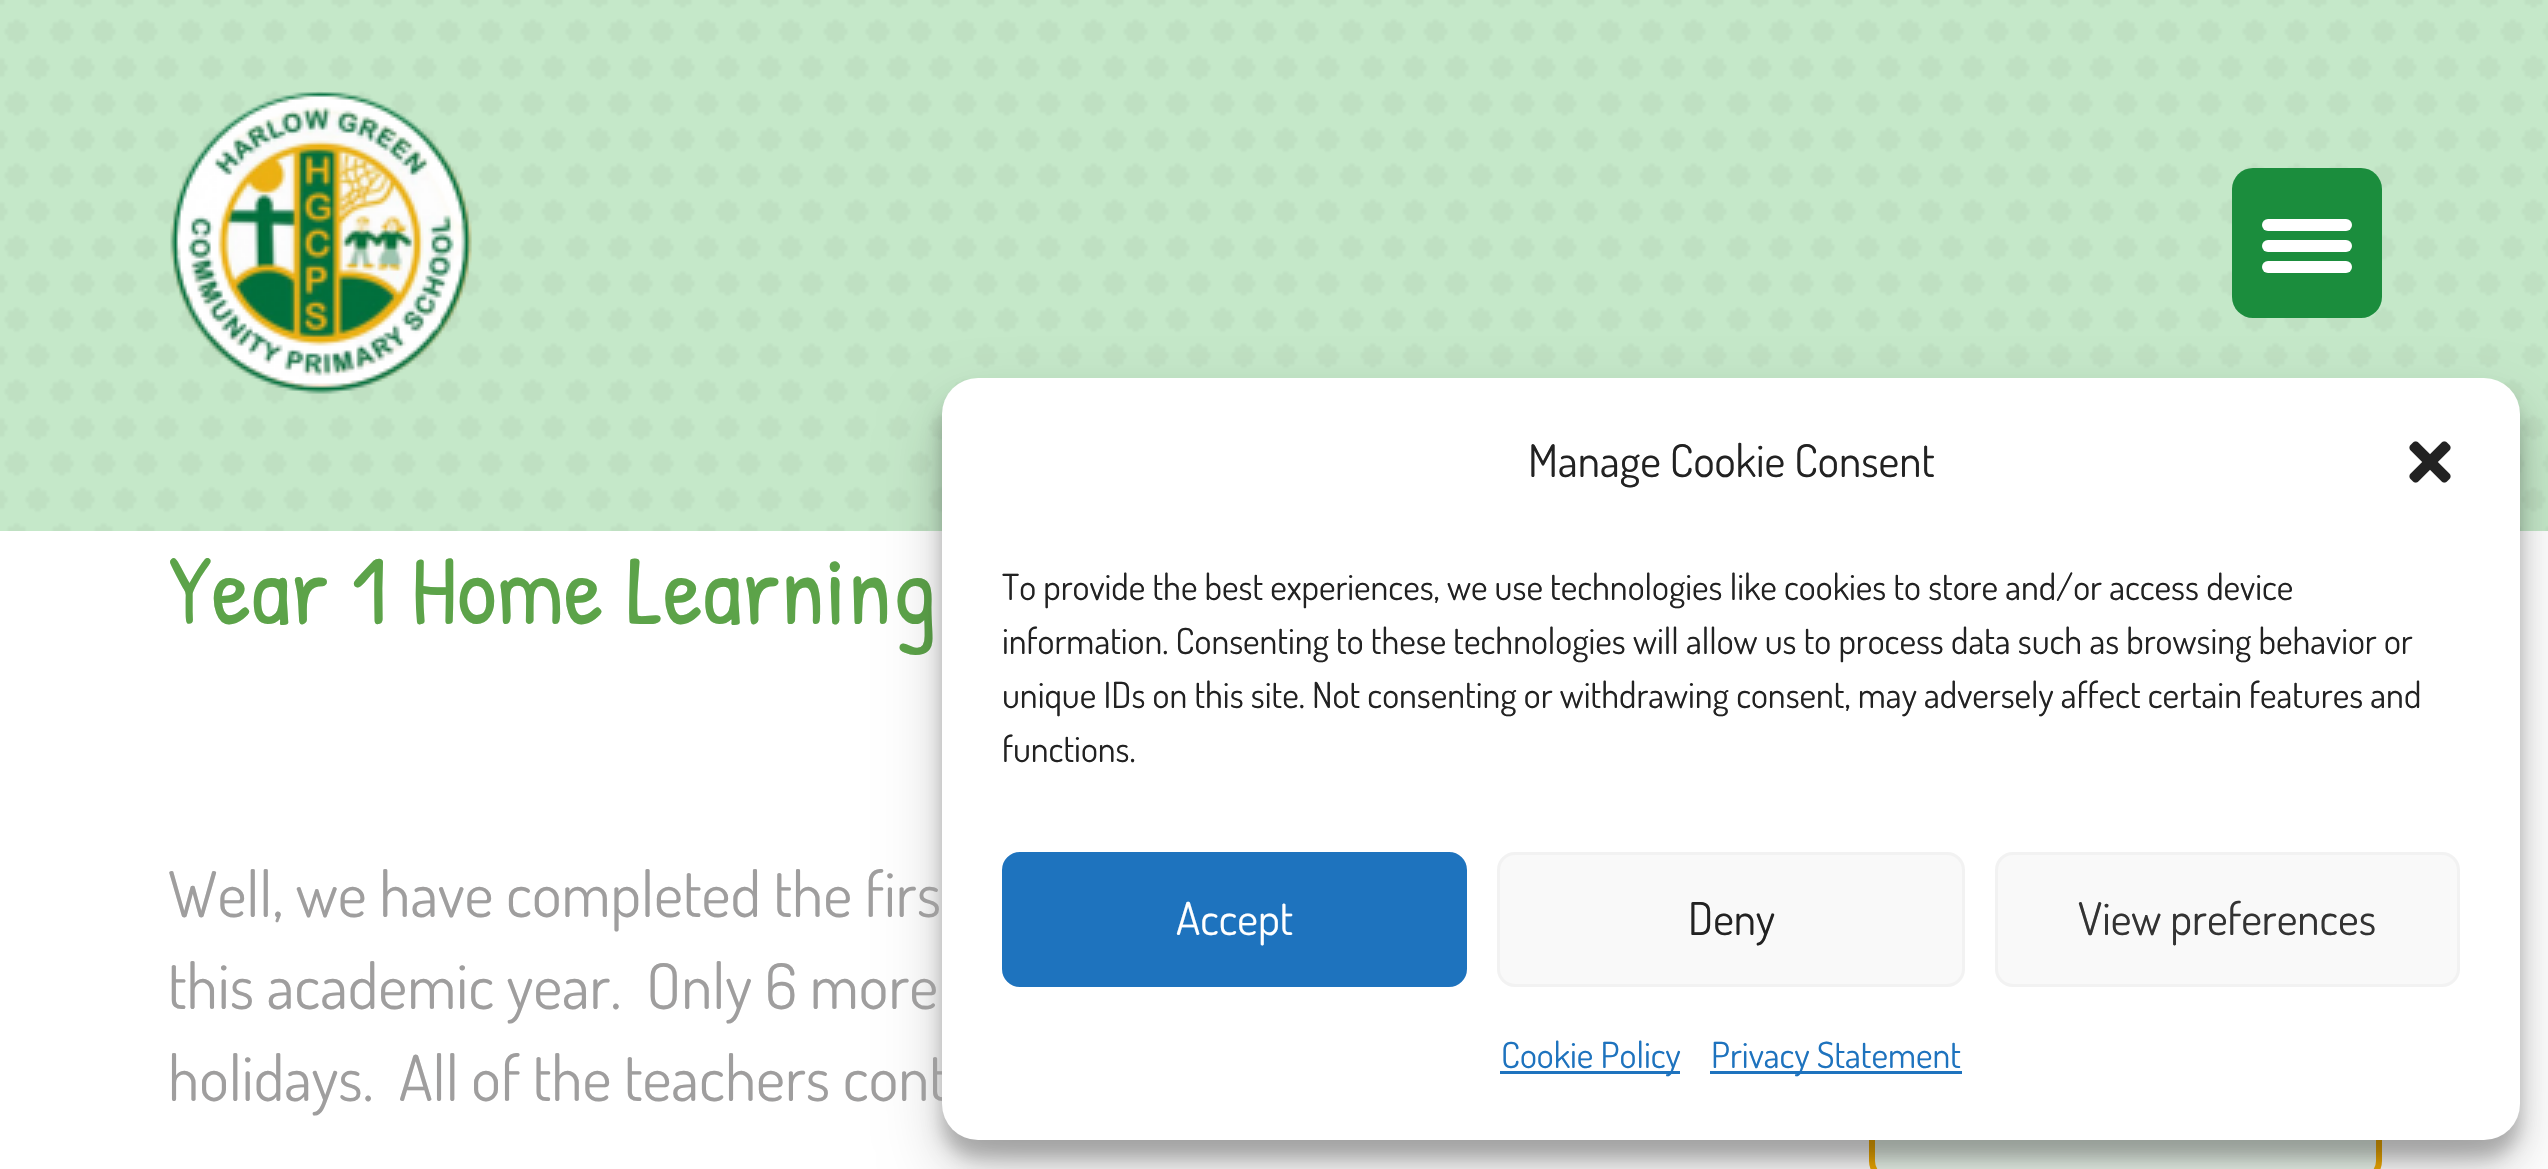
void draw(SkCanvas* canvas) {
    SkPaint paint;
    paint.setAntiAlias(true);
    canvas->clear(0xFFFFFFFF);
    paint.setColor(0xFFC5E8C9);
    canvas->drawRect(SkRect::MakeXYWH(0, 0, 2548, 531), paint);
    canvas->drawImageRect(SkImages::DeferredFromEncodedData(SkData::MakeFromFileName("img1.png")), SkRect::MakeXYWH(0, 0, 2548, 531), SkSamplingOptions());
    canvas->drawImageRect(SkImages::DeferredFromEncodedData(SkData::MakeFromFileName("img2.png")), SkRect::MakeXYWH(170, 92, 302, 302), SkSamplingOptions());
    paint.setColor(0xFF1B8D3D);
    canvas->drawRoundRect(SkRect::MakeXYWH(2232, 168, 150, 150), 21, 21, paint);
    paint.setColor(0xFFFFFFFF);
    canvas->drawRoundRect(SkRect::MakeXYWH(2262, 219, 90, 12), 6, 6, paint);
    canvas->drawRoundRect(SkRect::MakeXYWH(2262, 240, 90, 12), 6, 6, paint);
    canvas->drawRoundRect(SkRect::MakeXYWH(2262, 261, 90, 12), 6, 6, paint);
    SkFont font1(fontMgr->matchFamilyStyle("Patrick Hand", SkFontStyle::Normal()), 99.25f);
    font1.setSubpixel(true);
    paint.setColor(0xFF5CA349);
    canvas->drawString("Year 1 Home Learning", 168, 624, font1, paint);
    paint.setColor(0xFFECF7ED);
    canvas->drawRoundRect(SkRect::MakeXYWH(1872, 1119, 507, 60), 18, 18, paint);
    paint.setStyle(SkPaint::kStroke_Style);
    paint.setStrokeWidth(6);
    paint.setColor(0xFFF0AA01);
    canvas->drawRoundRect(SkRect::MakeXYWH(1872, 1119, 507, 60), 18, 18, paint);
    paint.setStyle(SkPaint::kFill_Style);
    paint.setColor(0x3B000000);
    paint.setMaskFilter(SkMaskFilter::MakeBlur(kNormal_SkBlurStyle, 9));
    canvas->drawRoundRect(SkRect::MakeXYWH(942, 396, 1578, 762), 36, 36, paint);
    paint.setMaskFilter(nullptr);
    paint.setColor(0x30000000);
    paint.setMaskFilter(SkMaskFilter::MakeBlur(kNormal_SkBlurStyle, 30));
    canvas->drawRoundRect(SkRect::MakeXYWH(942, 408, 1578, 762), 36, 36, paint);
    paint.setMaskFilter(nullptr);
    SkFont font2(fontMgr->matchFamilyStyle("Dosis", SkFontStyle::Normal()), 63);
    font2.setSubpixel(true);
    paint.setColor(0xFF9F9E9E);
    canvas->drawString("holidays.  All of the teachers cont", 168, 1101, font2, paint);
    paint.setColor(0xFFFFFFFF);
    canvas->drawRoundRect(SkRect::MakeXYWH(942, 378, 1578, 762), 36, 36, paint);
    SkFont font3(fontMgr->matchFamilyStyle("Dosis", SkFontStyle::Normal()), 45);
    font3.setSubpixel(true);
    paint.setColor(0xFF222222);
    canvas->drawString("Manage Cookie Consent", 1528, 477, font3, paint);
    canvas->drawImageRect(SkImages::DeferredFromEncodedData(SkData::MakeFromFileName("img3.png")), SkRect::MakeXYWH(2409, 441, 42, 42), SkSamplingOptions());
    SkFont font4(fontMgr->matchFamilyStyle("Dosis", SkFontStyle::Normal()), 36);
    font4.setSubpixel(true);
    canvas->drawString("To provide the best experiences, we use technologies like cookies to store and/or access device", 1002, 600, font4, paint);
    canvas->drawString("information. Consenting to these technologies will allow us to process data such as browsing behavior or", 1002, 654, font4, paint);
    canvas->drawString("unique IDs on this site. Not consenting or withdrawing consent, may adversely affect certain features and", 1002, 708, font4, paint);
    canvas->drawString("functions.", 1002, 762, font4, paint);
    paint.setColor(0xFF1E73BE);
    canvas->drawRoundRect(SkRect::MakeXYWH(1003.5f, 853.5f, 462, 132), 16.5f, 16.5f, paint);
    paint.setStyle(SkPaint::kStroke_Style);
    paint.setStrokeWidth(3);
    canvas->drawRoundRect(SkRect::MakeXYWH(1003.5f, 853.5f, 462, 132), 16.5f, 16.5f, paint);
    paint.setStyle(SkPaint::kFill_Style);
    paint.setColor(0xFFFFFFFF);
    canvas->drawString("Accept", 1176, 935, font3, paint);
    paint.setColor(0xFFF9F9F9);
    canvas->drawRoundRect(SkRect::MakeXYWH(1498.5f, 853.5f, 465, 132), 16.5f, 16.5f, paint);
    paint.setStyle(SkPaint::kStroke_Style);
    paint.setColor(0xFFF2F2F2);
    canvas->drawRoundRect(SkRect::MakeXYWH(1498.5f, 853.5f, 465, 132), 16.5f, 16.5f, paint);
    paint.setStyle(SkPaint::kFill_Style);
    paint.setColor(0xFF222222);
    canvas->drawString("Deny", 1688, 935, font3, paint);
    paint.setColor(0xFFF9F9F9);
    canvas->drawRoundRect(SkRect::MakeXYWH(1996.5f, 853.5f, 462, 132), 16.5f, 16.5f, paint);
    paint.setStyle(SkPaint::kStroke_Style);
    paint.setColor(0xFFF2F2F2);
    canvas->drawRoundRect(SkRect::MakeXYWH(1996.5f, 853.5f, 462, 132), 16.5f, 16.5f, paint);
    paint.setStyle(SkPaint::kFill_Style);
    paint.setColor(0xFF333333);
    canvas->drawString("View preferences", 2078, 935, font3, paint);
    paint.setColor(0xFF1E73BE);
    canvas->drawRect(SkRect::MakeXYWH(1500, 1071, 180, 3), paint);
    canvas->drawString("Cookie Policy", 1501, 1068, font4, paint);
    canvas->drawRect(SkRect::MakeXYWH(1710, 1071, 252, 3), paint);
    canvas->drawString("Privacy Statement", 1711, 1068, font4, paint);
    paint.setColor(0xFF9F9E9E);
    canvas->drawString("Well, we have completed the firs", 168, 917, font2, paint);
    canvas->drawString("this academic year.  Only 6 more", 168, 1009, font2, paint);
}
